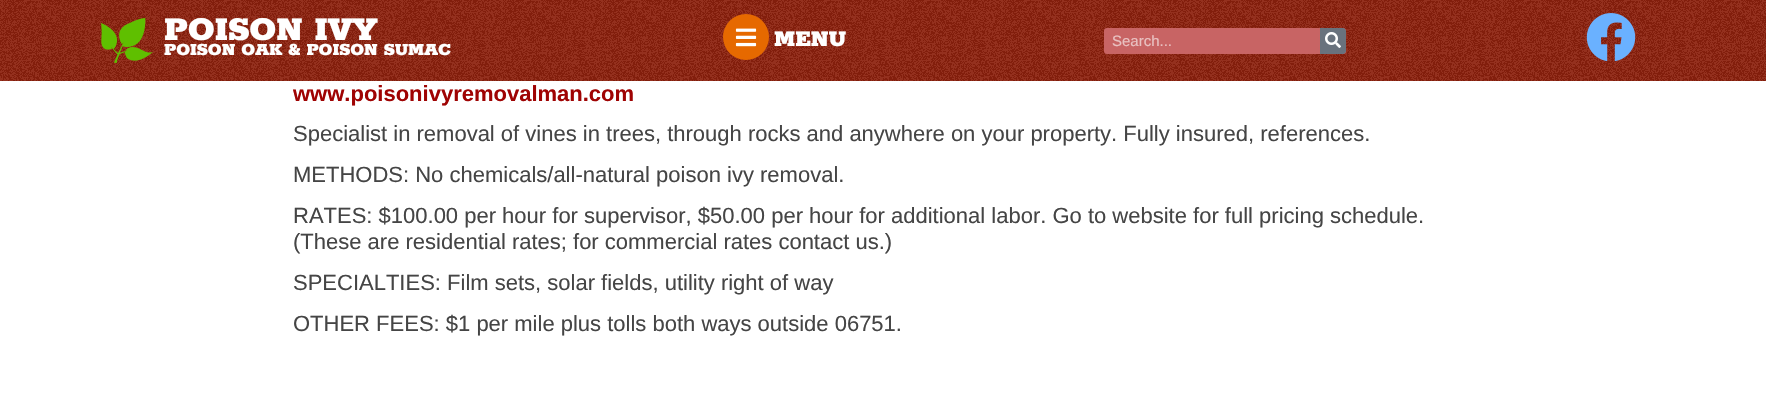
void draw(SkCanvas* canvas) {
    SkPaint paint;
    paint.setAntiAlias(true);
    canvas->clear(0xFFFFFFFF);
    canvas->drawImageRect(SkImages::DeferredFromEncodedData(SkData::MakeFromFileName("img1.png")), SkRect::MakeXYWH(0, 0, 1766, 81), SkSamplingOptions());
    canvas->drawImageRect(SkImages::DeferredFromEncodedData(SkData::MakeFromFileName("img2.png")), SkRect::MakeXYWH(101, 18, 52, 45), SkSamplingOptions());
    SkFont font1(fontMgr->matchFamilyStyle("Rokkitt", SkFontStyle(900, SkFontStyle::kNormal_Width, SkFontStyle::kUpright_Slant)), 37);
    font1.setSubpixel(true);
    paint.setColor(0xFFFFFFFF);
    canvas->drawString("POISON IVY", 164, 40, font1, paint);
    SkFont font2(fontMgr->matchFamilyStyle("Rokkitt", SkFontStyle(900, SkFontStyle::kNormal_Width, SkFontStyle::kUpright_Slant)), 19);
    font2.setSubpixel(true);
    canvas->drawString("POISON OAK & POISON SUMAC", 164, 55, font2, paint);
    paint.setColor(0xFFE66900);
    canvas->drawCircle(746, 37, 23, paint);
    canvas->drawImageRect(SkImages::DeferredFromEncodedData(SkData::MakeFromFileName("img3.png")), SkRect::MakeXYWH(735, 28, 22, 19), SkSamplingOptions());
    SkFont font3(fontMgr->matchFamilyStyle("Rokkitt", SkFontStyle(900, SkFontStyle::kNormal_Width, SkFontStyle::kUpright_Slant)), 25);
    font3.setSubpixel(true);
    paint.setColor(0xFFFFFFFF);
    canvas->drawString("MENU", 774, 46, font3, paint);
    paint.setColor(0xFFC86464);
    canvas->drawRoundRect(SkRect::MakeXYWH(1104, 28, 242, 26), 3, 3, paint);
    SkFont font4(fontMgr->matchFamilyStyle("Liberation Sans", SkFontStyle::Normal()), 15);
    font4.setSubpixel(true);
    paint.setColor(0xFFE9C1C1);
    canvas->drawString("Search...", 1112, 46, font4, paint);
    paint.setColor(0xFF69727D);
    canvas->drawPath(SkPathBuilder().moveTo(1320, 28).lineTo(1343, 28).cubicTo(1344.5f, 28, 1346, 29.5f, 1346, 31).lineTo(1346, 51).cubicTo(1346, 52.5f, 1344.5f, 54, 1343, 54).lineTo(1320, 54).close().detach(), paint);
    canvas->drawImageRect(SkImages::DeferredFromEncodedData(SkData::MakeFromFileName("img4.png")), SkRect::MakeXYWH(1325, 32, 16, 16), SkSamplingOptions());
    canvas->drawImageRect(SkImages::DeferredFromEncodedData(SkData::MakeFromFileName("img5.png")), SkRect::MakeXYWH(1586, 13, 50, 49), SkSamplingOptions());
    SkFont font5(fontMgr->matchFamilyStyle("Liberation Sans", SkFontStyle::Bold()), 22);
    font5.setSubpixel(true);
    paint.setColor(0xFF9F0303);
    canvas->drawString("www.poisonivyremovalman.com", 293, 101, font5, paint);
    SkFont font6(fontMgr->matchFamilyStyle("Liberation Sans", SkFontStyle::Normal()), 22);
    font6.setSubpixel(true);
    paint.setColor(0xFF454545);
    canvas->drawString("Specialist in removal of vines in trees, through rocks and anywhere on your property. Fully insured, references.", 293, 141, font6, paint);
    canvas->drawString("METHODS: No chemicals/all-natural poison ivy removal.", 293, 182, font6, paint);
    canvas->drawString("RATES: $100.00 per hour for supervisor, $50.00 per hour for additional labor. Go to website for full pricing schedule.", 293, 223, font6, paint);
    canvas->drawString("(These are residential rates; for commercial rates contact us.)", 293, 249, font6, paint);
    canvas->drawString("SPECIALTIES: Film sets, solar fields, utility right of way", 293, 290, font6, paint);
    canvas->drawString("OTHER FEES: $1 per mile plus tolls both ways outside 06751.", 293, 331, font6, paint);
}
